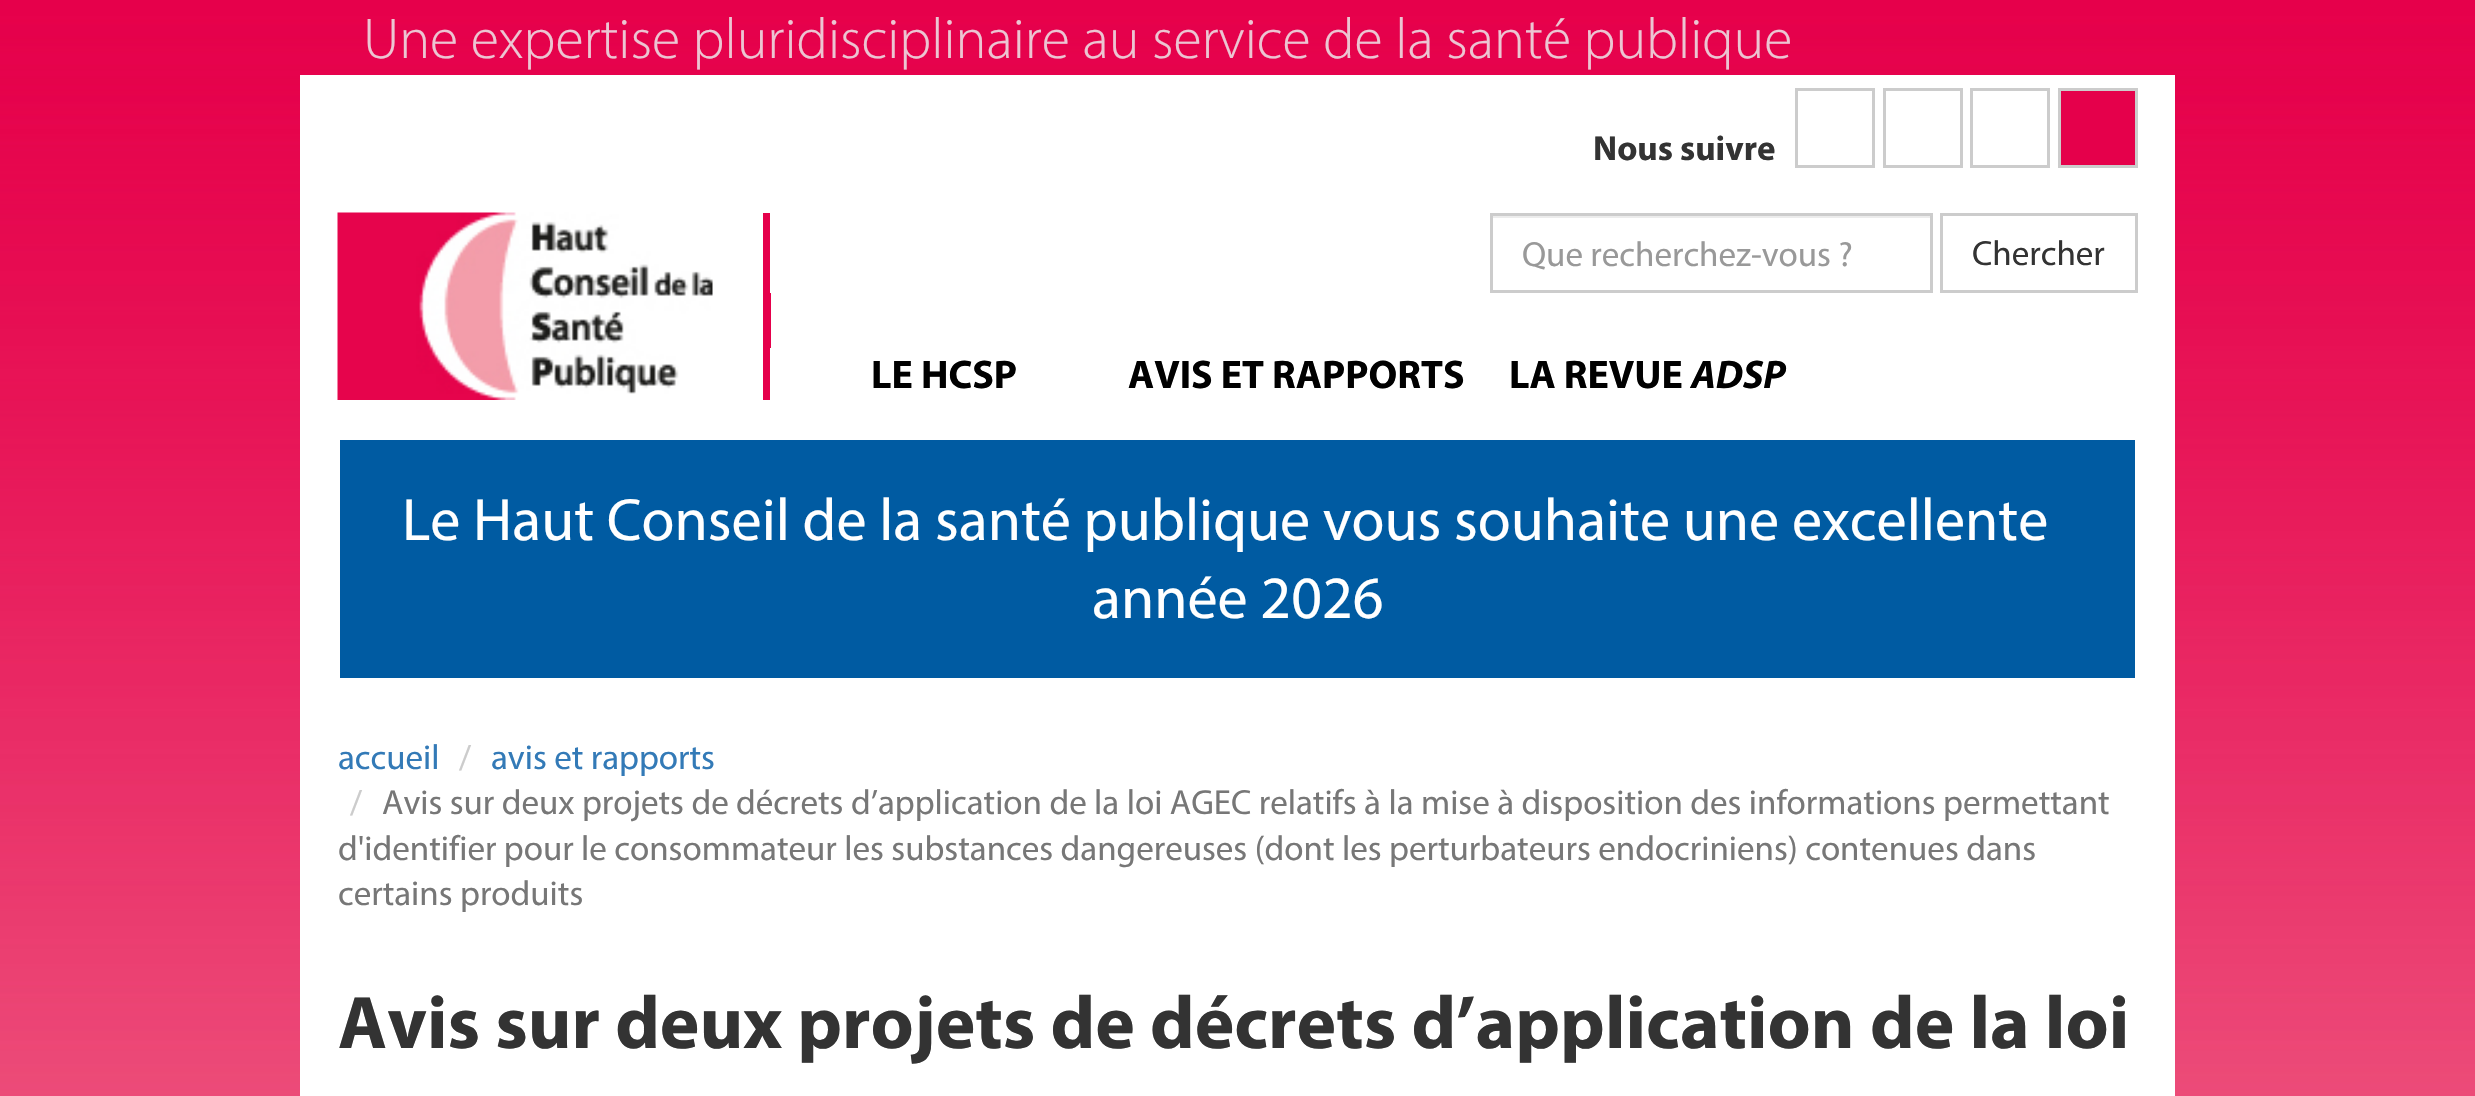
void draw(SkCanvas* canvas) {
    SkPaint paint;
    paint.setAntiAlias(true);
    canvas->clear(0xFFFFFFFF);
    canvas->drawImageRect(SkImages::DeferredFromEncodedData(SkData::MakeFromFileName("img1.png")), SkRect::MakeXYWH(0, 0, 2475, 1096), SkSamplingOptions());
    SkFont font1(fontMgr->matchFamilyStyle("Myriad", SkFontStyle(300, SkFontStyle::kNormal_Width, SkFontStyle::kUpright_Slant)), 57.75f);
    font1.setSubpixel(true);
    paint.setColor(0xFFECC5D2);
    canvas->drawString("Une expertise pluridisciplinaire au service de la santé publique", 363, 58, font1, paint);
    paint.setColor(0xFFFFFFFF);
    canvas->drawRect(SkRect::MakeXYWH(300, 75, 1875, 1021), paint);
    SkFont font2(fontMgr->matchFamilyStyle("Myriad", SkFontStyle::Bold()), 35);
    font2.setSubpixel(true);
    paint.setColor(0xFF333333);
    canvas->drawString("Nous suivre", 1593, 160, font2, paint);
    paint.setStyle(SkPaint::kStroke_Style);
    paint.setStrokeWidth(3);
    paint.setColor(0xFFCCCCCC);
    canvas->drawRect(SkRect::MakeXYWH(1796.5f, 89.5f, 77, 77), paint);
    canvas->drawRect(SkRect::MakeXYWH(1884.5f, 89.5f, 77, 77), paint);
    canvas->drawRect(SkRect::MakeXYWH(1971.5f, 89.5f, 77, 77), paint);
    paint.setStyle(SkPaint::kFill_Style);
    paint.setColor(0xFFE5004B);
    canvas->drawRect(SkRect::MakeXYWH(2059.5f, 89.5f, 77, 77), paint);
    paint.setStyle(SkPaint::kStroke_Style);
    paint.setColor(0xFFCCCCCC);
    canvas->drawRect(SkRect::MakeXYWH(2059.5f, 89.5f, 77, 77), paint);
    paint.setStyle(SkPaint::kFill_Style);
    paint.setColor(0xFFE5004B);
    canvas->drawRect(SkRect::MakeXYWH(763, 213, 8, 187), paint);
    canvas->drawImageRect(SkImages::DeferredFromEncodedData(SkData::MakeFromFileName("img2.png")), SkRect::MakeXYWH(337, 212, 376, 188), SkSamplingOptions());
    paint.setColor(0xFFFFFFFF);
    canvas->drawRect(SkRect::MakeXYWH(770, 213, 1, 80), paint);
    paint.setColor(0xFFECECEC);
    canvas->drawRect(SkRect::MakeXYWH(1493, 216, 437, 2), paint);
    paint.setStyle(SkPaint::kStroke_Style);
    paint.setColor(0xFFCCCCCC);
    canvas->drawRect(SkRect::MakeXYWH(1491.5f, 214.5f, 440, 77), paint);
    SkFont font3(fontMgr->matchFamilyStyle("Myriad", SkFontStyle::Normal()), 35);
    font3.setSubpixel(true);
    paint.setStyle(SkPaint::kFill_Style);
    paint.setColor(0xFF999999);
    canvas->drawString("Que recherchez-vous ?", 1522, 266, font3, paint);
    paint.setStyle(SkPaint::kStroke_Style);
    paint.setColor(0xFFCCCCCC);
    canvas->drawRect(SkRect::MakeXYWH(1941.5f, 214.5f, 195, 77), paint);
    paint.setStyle(SkPaint::kFill_Style);
    paint.setColor(0xFF333333);
    canvas->drawString("Chercher", 1972, 265, font3, paint);
    paint.setColor(0xFFFFFFFF);
    canvas->drawRect(SkRect::MakeXYWH(770, 348, 1, 52), paint);
    SkFont font4(fontMgr->matchFamilyStyle("Myriad", SkFontStyle::Bold()), 40);
    font4.setSubpixel(true);
    paint.setColor(0xFF000000);
    canvas->drawString("LE HCSP", 871, 388, font4, paint);
    canvas->drawString("AVIS ET RAPPORTS", 1128, 388, font4, paint);
    canvas->drawString("LA REVUE", 1509, 388, font4, paint);
    SkFont font5(fontMgr->matchFamilyStyle("Myriad", SkFontStyle::BoldItalic()), 40);
    font5.setSubpixel(true);
    canvas->drawString("ADSP", 1691, 388, font5, paint);
    paint.setColor(0xFF005BA2);
    canvas->drawRect(SkRect::MakeXYWH(340, 440, 1795, 238), paint);
    SkFont font6(fontMgr->matchFamilyStyle("Myriad", SkFontStyle::Normal()), 60);
    font6.setSubpixel(true);
    paint.setColor(0xFFFFFFFF);
    canvas->drawString("Le Haut Conseil de la santé publique vous souhaite une excellente", 402, 540, font6, paint);
    canvas->drawString("année 2026", 1092, 618, font6, paint);
    paint.setColor(0xFF337AB7);
    canvas->drawString("accueil", 338, 769, font3, paint);
    paint.setColor(0xFFCCCCCC);
    canvas->drawString("/", 459, 769, font3, paint);
    paint.setColor(0xFF337AB7);
    canvas->drawString("avis et rapports", 491, 769, font3, paint);
    paint.setColor(0xFFCCCCCC);
    canvas->drawString("/", 350, 814, font3, paint);
    paint.setColor(0xFF777777);
    canvas->drawString("Avis sur deux projets de décrets d’application de la loi AGEC relatifs à la mise à disposition des informations permettant", 382, 814, font3, paint);
    canvas->drawString("d'identifier pour le consommateur les substances dangereuses (dont les perturbateurs endocriniens) contenues dans", 338, 860, font3, paint);
    canvas->drawString("certains produits", 338, 905, font3, paint);
    SkFont font7(fontMgr->matchFamilyStyle("Myriad", SkFontStyle::Bold()), 75);
    font7.setSubpixel(true);
    paint.setColor(0xFF333333);
    canvas->drawString("Avis sur deux projets de décrets d’application de la loi", 338, 1048, font7, paint);
}
